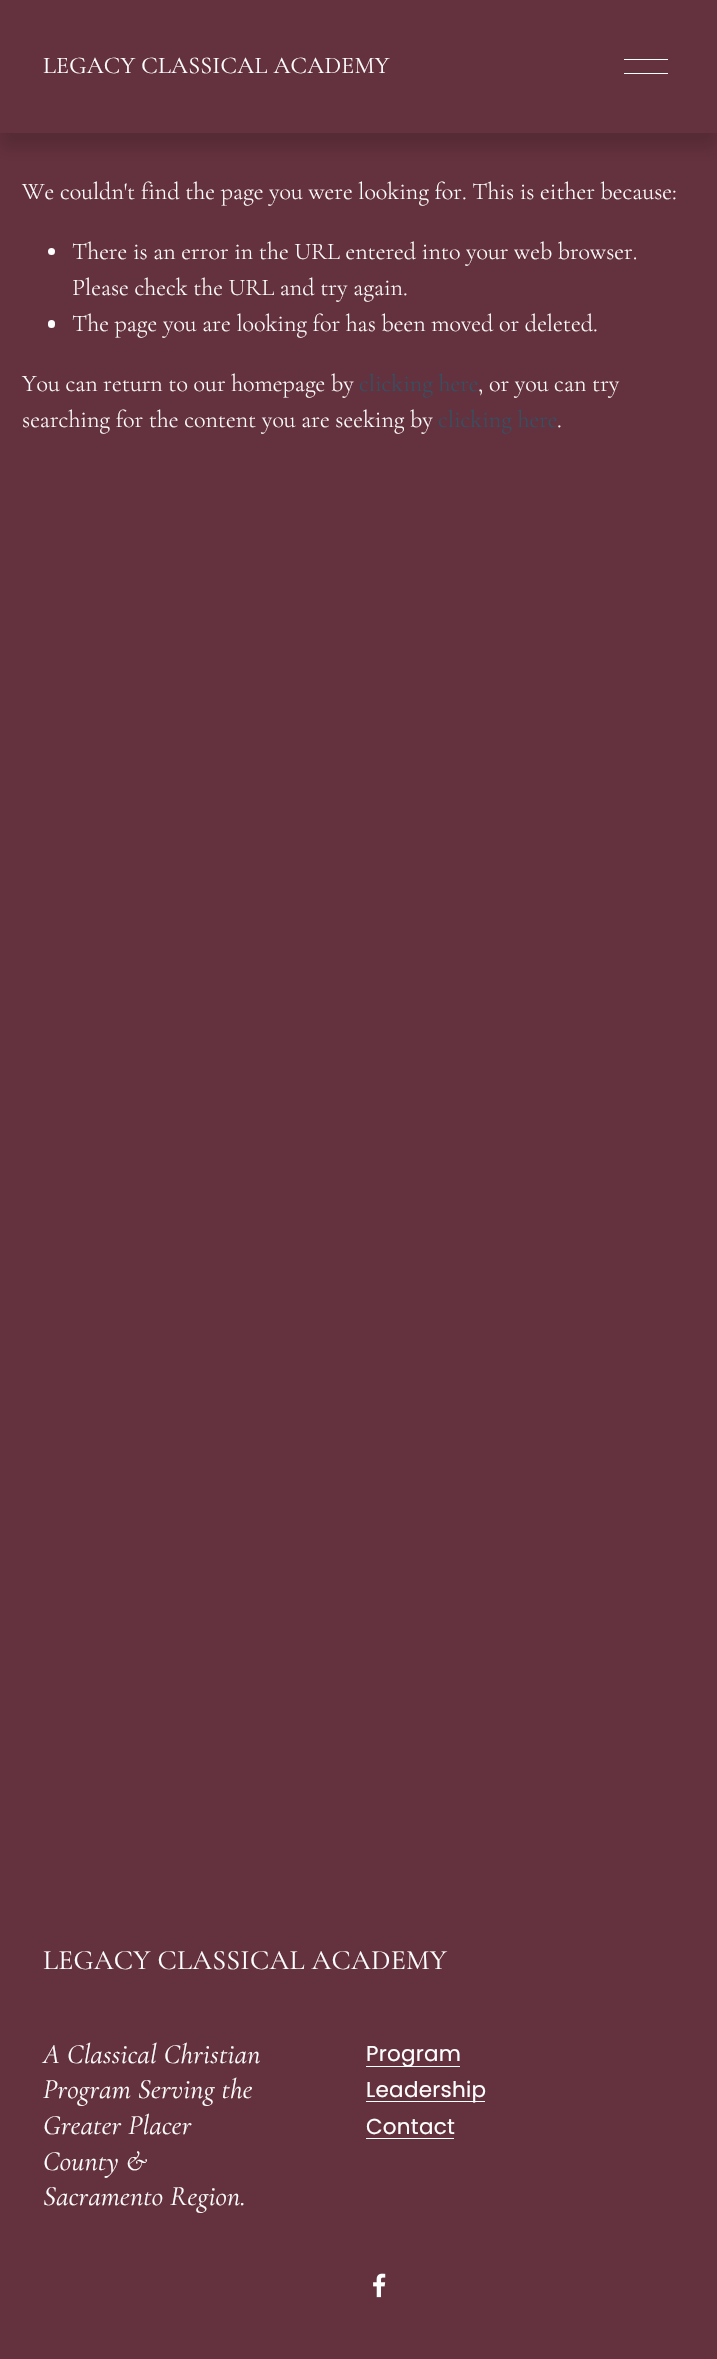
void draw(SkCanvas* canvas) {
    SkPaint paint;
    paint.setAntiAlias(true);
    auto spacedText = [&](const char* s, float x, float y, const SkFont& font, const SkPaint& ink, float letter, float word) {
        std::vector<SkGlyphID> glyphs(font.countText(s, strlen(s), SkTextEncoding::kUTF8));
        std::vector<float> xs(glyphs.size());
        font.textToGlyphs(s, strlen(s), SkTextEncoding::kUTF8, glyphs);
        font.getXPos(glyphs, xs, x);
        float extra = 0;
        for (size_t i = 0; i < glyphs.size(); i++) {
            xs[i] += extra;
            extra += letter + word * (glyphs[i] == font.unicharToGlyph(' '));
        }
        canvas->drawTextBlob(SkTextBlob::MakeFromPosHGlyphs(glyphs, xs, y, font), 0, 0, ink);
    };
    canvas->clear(0xFF64313E);
    canvas->save();
    canvas->clipPath(SkPathBuilder(SkPathFillType::kEvenOdd).moveTo(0, 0).lineTo(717, 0).lineTo(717, 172).lineTo(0, 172).close().moveTo(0, 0).lineTo(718, 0).lineTo(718, 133).lineTo(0, 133).close().detach(), true);
    paint.setColor(0xFF552A35);
    paint.setMaskFilter(SkMaskFilter::MakeBlur(kNormal_SkBlurStyle, 7.5f));
    canvas->drawRect(SkRect::MakeXYWH(0, 15, 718, 133), paint);
    paint.setMaskFilter(nullptr);
    canvas->restore();
    SkFont font1(fontMgr->matchFamilyStyle("Cormorant Garamond", SkFontStyle::Normal()), 24.05f);
    font1.setSubpixel(true);
    paint.setColor(0xFFFFFFFF);
    spacedText("LEGACY CLASSICAL ACADEMY", 43, 73, font1, paint, 0.25f, 0);
    canvas->drawRect(SkRect::MakeXYWH(624, 59, 44, 1), paint);
    canvas->drawRect(SkRect::MakeXYWH(624, 73, 44, 1), paint);
    SkFont font2(fontMgr->matchFamilyStyle("Cormorant Garamond", SkFontStyle(300, SkFontStyle::kNormal_Width, SkFontStyle::kUpright_Slant)), 24.05f);
    font2.setSubpixel(true);
    canvas->drawString("We couldn't find the page you were looking for. This is either because:", 22, 199, font2, paint);
    canvas->drawCircle(51.5f, 251.5f, 3.5f, paint);
    canvas->drawString("There is an error in the URL entered into your web browser.", 72, 259, font2, paint);
    canvas->drawString("Please check the URL and try again.", 72, 295, font2, paint);
    canvas->drawRoundRect(SkRect::MakeXYWH(48, 320, 7, 8), 3.5f, 3.5f, paint);
    canvas->drawString("The page you are looking for has been moved or deleted.", 72, 331, font2, paint);
    canvas->drawString("You can return to our homepage by", 22, 391, font2, paint);
    paint.setColor(0xFF315264);
    canvas->drawString("clicking here", 359, 391, font2, paint);
    paint.setColor(0xFFFFFFFF);
    canvas->drawString(", or you can try", 478, 391, font2, paint);
    canvas->drawString("searching for the content you are seeking by", 22, 427, font2, paint);
    paint.setColor(0xFF315264);
    canvas->drawString("clicking here", 438, 427, font2, paint);
    paint.setColor(0xFFFFFFFF);
    canvas->drawString(".", 557, 427, font2, paint);
    SkFont font3(fontMgr->matchFamilyStyle("Cormorant Garamond", SkFontStyle::Normal()), 28.1f);
    font3.setSubpixel(true);
    spacedText("LEGACY CLASSICAL ACADEMY", 43, 1969, font3, paint, 0.25f, 0);
    SkFont font4(fontMgr->matchFamilyStyle("Cormorant Garamond", SkFontStyle::Italic()), 28.1f);
    font4.setSubpixel(true);
    spacedText("A Classical Christian", 43, 2063, font4, paint, 0.25f, 0);
    spacedText("Program Serving the", 43, 2098, font4, paint, 0.25f, 0);
    spacedText("Greater Placer", 43, 2134, font4, paint, 0.25f, 0);
    spacedText("County &", 43, 2170, font4, paint, 0.25f, 0);
    spacedText("Sacramento Region.", 43, 2205, font4, paint, 0.25f, 0);
    canvas->drawRect(SkRect::MakeXYWH(366, 2066, 94, 1), paint);
    SkFont font5(fontMgr->matchFamilyStyle("Poppins", SkFontStyle::Normal()), 21.5f);
    font5.setSubpixel(true);
    spacedText("Program", 366, 2061, font5, paint, 0.25f, 0);
    canvas->drawRect(SkRect::MakeXYWH(366, 2101, 119, 1), paint);
    spacedText("Leadership", 366, 2097, font5, paint, 0.25f, 0);
    spacedText("Contact", 366, 2134, font5, paint, 0.25f, 0);
    canvas->drawRect(SkRect::MakeXYWH(366, 2138, 88, 1), paint);
    canvas->drawImageRect(SkImages::DeferredFromEncodedData(SkData::MakeFromFileName("img1.png")), SkRect::MakeXYWH(373, 2273, 13, 25), SkSamplingOptions());
}
